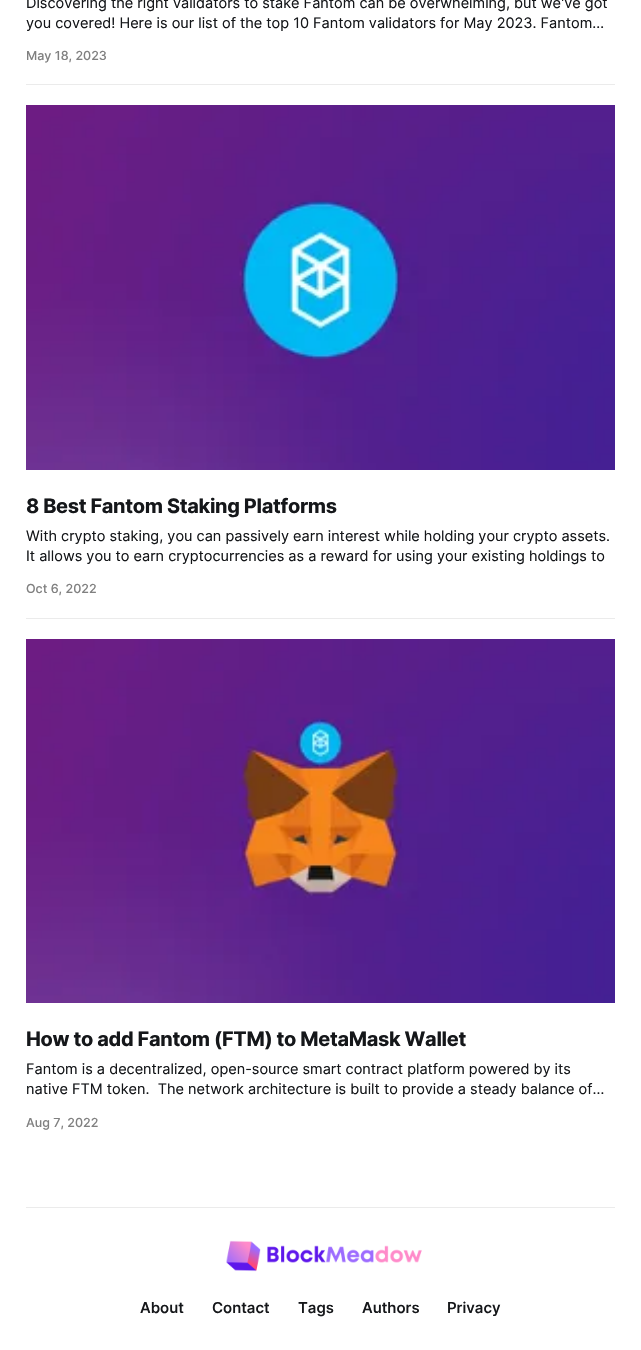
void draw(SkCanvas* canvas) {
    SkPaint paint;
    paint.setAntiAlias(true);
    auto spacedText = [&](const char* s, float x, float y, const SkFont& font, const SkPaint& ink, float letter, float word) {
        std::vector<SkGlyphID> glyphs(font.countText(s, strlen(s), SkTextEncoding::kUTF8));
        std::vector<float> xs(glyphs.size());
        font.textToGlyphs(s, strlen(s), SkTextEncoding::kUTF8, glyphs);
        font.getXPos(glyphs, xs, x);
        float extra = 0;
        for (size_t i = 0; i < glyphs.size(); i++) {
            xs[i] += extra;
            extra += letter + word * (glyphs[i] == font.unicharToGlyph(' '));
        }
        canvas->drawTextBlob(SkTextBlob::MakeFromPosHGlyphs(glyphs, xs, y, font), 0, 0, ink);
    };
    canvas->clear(0xFFFFFFFF);
    SkFont font1(fontMgr->matchFamilyStyle("Inter", SkFontStyle::Normal()), 14.5f);
    font1.setSubpixel(true);
    paint.setColor(0xFF15171A);
    canvas->drawString("Discovering the right validators to stake Fantom can be overwhelming, but we've got", 26, 8, font1, paint);
    canvas->drawString("you covered! Here is our list of the top 10 Fantom validators for May 2023. Fantom…", 26, 28, font1, paint);
    SkFont font2(fontMgr->matchFamilyStyle("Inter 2", SkFontStyle(500, SkFontStyle::kNormal_Width, SkFontStyle::kUpright_Slant)), 12.5f);
    font2.setSubpixel(true);
    paint.setColor(0xFF808080);
    canvas->drawString("May 18, 2023", 26, 60, font2, paint);
    paint.setColor(0xFFEBEBEB);
    canvas->drawRect(SkRect::MakeXYWH(26, 84, 589, 1), paint);
    canvas->drawImageRect(SkImages::DeferredFromEncodedData(SkData::MakeFromFileName("img1.png")), SkRect::MakeXYWH(26, 105, 589, 365), SkSamplingOptions());
    SkFont font3(fontMgr->matchFamilyStyle("Inter", SkFontStyle::Bold()), 19.95f);
    font3.setSubpixel(true);
    paint.setColor(0xFF15171A);
    spacedText("8 Best Fantom Staking Platforms", 26, 513, font3, paint, -0.3f, 0);
    canvas->drawString("With crypto staking, you can passively earn interest while holding your crypto assets.", 26, 541, font1, paint);
    canvas->drawString("It allows you to earn cryptocurrencies as a reward for using your existing holdings to", 26, 561, font1, paint);
    paint.setColor(0xFF808080);
    canvas->drawString("Oct 6, 2022", 26, 593, font2, paint);
    paint.setColor(0xFFEBEBEB);
    canvas->drawRect(SkRect::MakeXYWH(26, 618, 589, 1), paint);
    canvas->drawImageRect(SkImages::DeferredFromEncodedData(SkData::MakeFromFileName("img2.png")), SkRect::MakeXYWH(26, 639, 589, 364), SkSamplingOptions());
    paint.setColor(0xFF15171A);
    spacedText("How to add Fantom (FTM) to MetaMask Wallet", 26, 1046, font3, paint, -0.3f, 0);
    canvas->drawString("Fantom is a decentralized, open-source smart contract platform powered by its", 26, 1074, font1, paint);
    canvas->drawString("native FTM token.  The network architecture is built to provide a steady balance of…", 26, 1094, font1, paint);
    paint.setColor(0xFF808080);
    canvas->drawString("Aug 7, 2022", 26, 1127, font2, paint);
    paint.setColor(0xFFEBEBEB);
    canvas->drawRect(SkRect::MakeXYWH(26, 1207, 589, 1), paint);
    canvas->drawImageRect(SkImages::DeferredFromEncodedData(SkData::MakeFromFileName("img3.png")), SkRect::MakeXYWH(226, 1240, 196, 32), SkSamplingOptions());
    SkFont font4(fontMgr->matchFamilyStyle("Inter", SkFontStyle(500, SkFontStyle::kNormal_Width, SkFontStyle::kUpright_Slant)), 15);
    font4.setSubpixel(true);
    paint.setColor(0xFF15171A);
    canvas->drawString("About", 140, 1313, font4, paint);
    canvas->drawString("Contact", 212, 1313, font4, paint);
    canvas->drawString("Tags", 298, 1313, font4, paint);
    canvas->drawString("Authors", 362, 1313, font4, paint);
    canvas->drawString("Privacy", 447, 1313, font4, paint);
}
